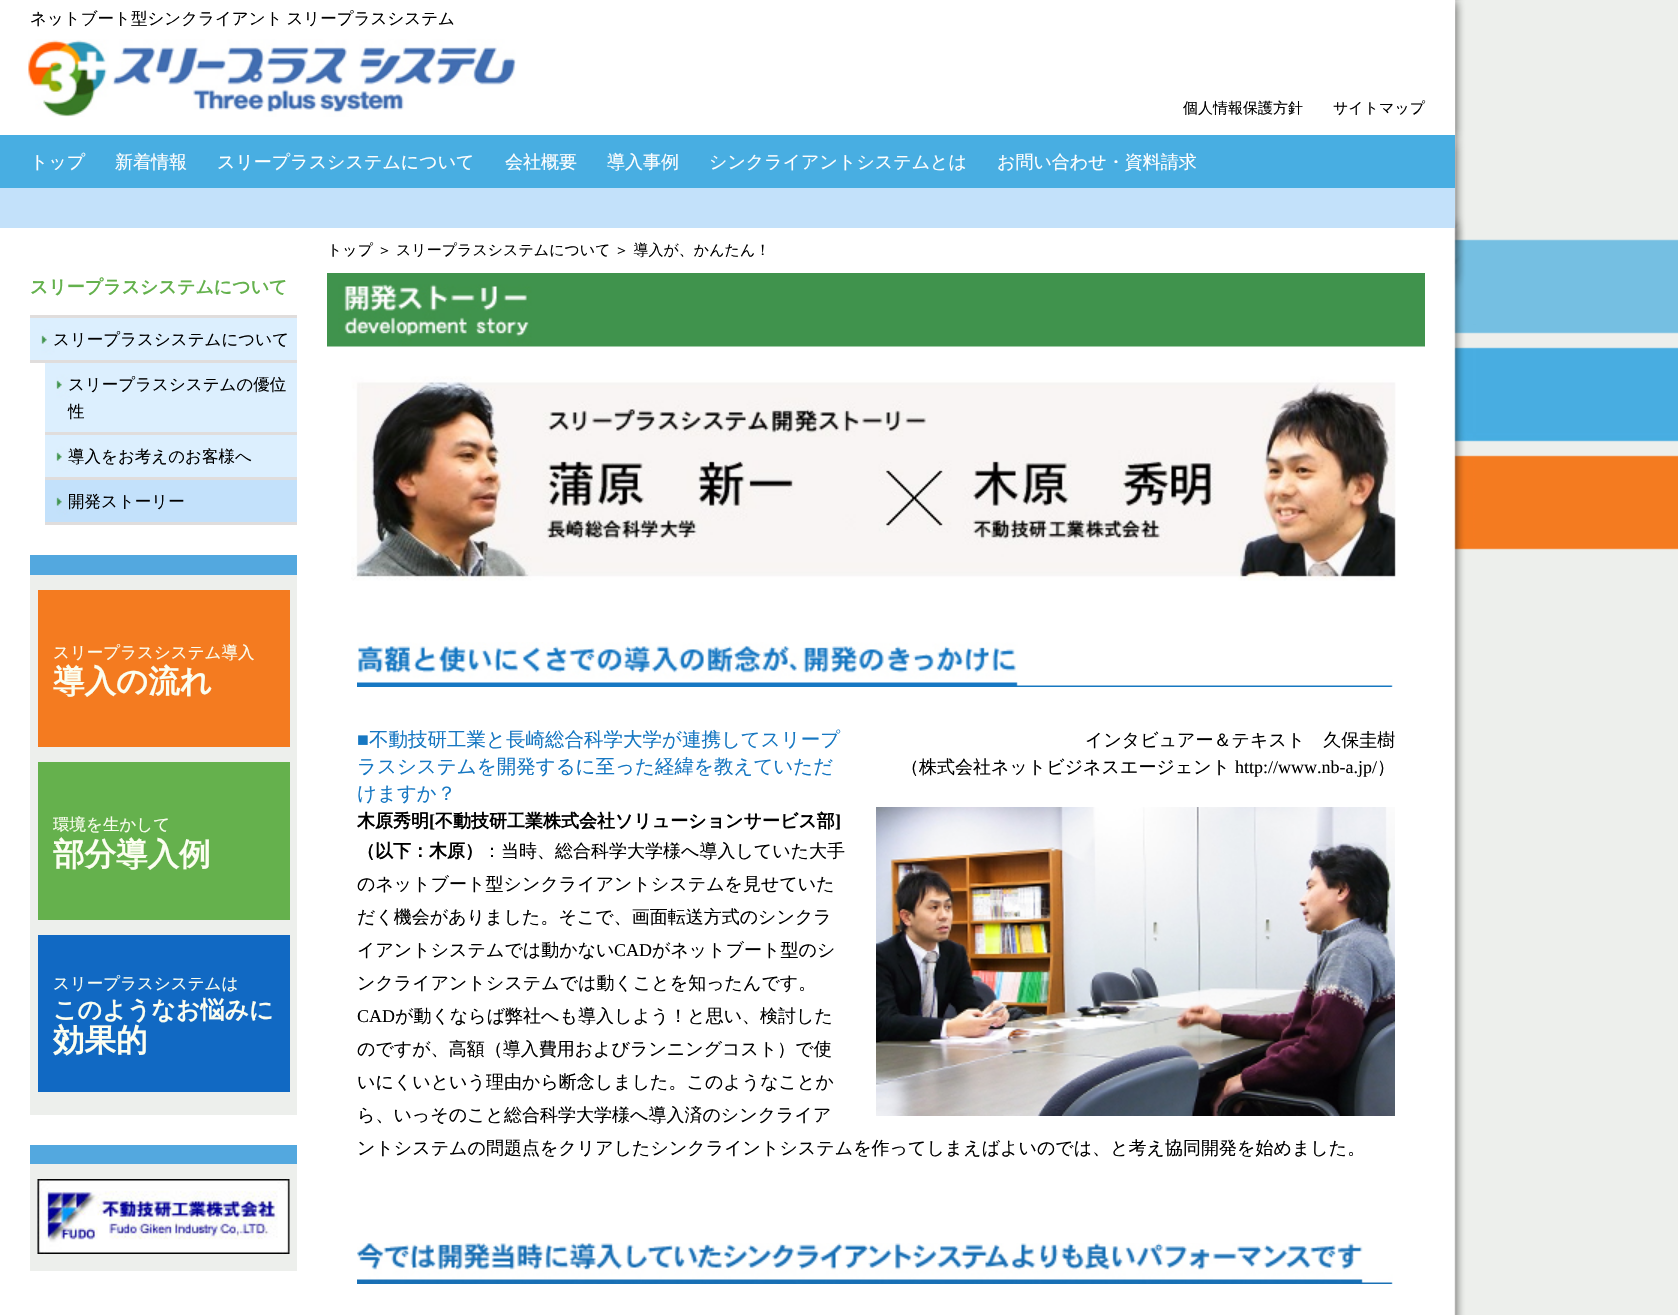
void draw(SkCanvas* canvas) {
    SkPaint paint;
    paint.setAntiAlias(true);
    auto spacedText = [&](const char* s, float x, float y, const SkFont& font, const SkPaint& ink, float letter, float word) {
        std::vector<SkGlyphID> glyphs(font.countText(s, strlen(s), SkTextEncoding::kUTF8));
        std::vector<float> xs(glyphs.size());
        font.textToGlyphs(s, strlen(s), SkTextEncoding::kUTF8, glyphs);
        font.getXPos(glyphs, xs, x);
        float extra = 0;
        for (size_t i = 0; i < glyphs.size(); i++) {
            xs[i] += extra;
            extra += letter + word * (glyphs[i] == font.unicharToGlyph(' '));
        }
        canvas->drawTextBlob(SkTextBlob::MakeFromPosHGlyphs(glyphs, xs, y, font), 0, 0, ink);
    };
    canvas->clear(0xFFFFFFFF);
    canvas->drawImageRect(SkImages::DeferredFromEncodedData(SkData::MakeFromFileName("img1.png")), SkRect::MakeXYWH(0, 0, 1678, 1315), SkSamplingOptions());
    paint.setColor(0xFFFFFFFF);
    canvas->drawRect(SkRect::MakeXYWH(1454, 0, 1, 135), paint);
    SkFont font1(fontMgr->matchFamilyStyle("WenQuanYi Zen Hei", SkFontStyle(500, SkFontStyle::kNormal_Width, SkFontStyle::kUpright_Slant)), 16.5f);
    font1.setSubpixel(true);
    paint.setColor(0xFF000000);
    spacedText("ネットブート型シンクライアント スリープラスシステム", 30, 24, font1, paint, 0, -1);
    canvas->drawImageRect(SkImages::DeferredFromEncodedData(SkData::MakeFromFileName("img2.png")), SkRect::MakeXYWH(28, 39, 488, 78), SkSamplingOptions());
    SkFont font2(fontMgr->matchFamilyStyle("WenQuanYi Zen Hei", SkFontStyle(500, SkFontStyle::kNormal_Width, SkFontStyle::kUpright_Slant)), 15);
    font2.setSubpixel(true);
    canvas->drawString("個人情報保護方針", 1183, 113, font2, paint);
    canvas->drawString("サイトマップ", 1333, 113, font2, paint);
    paint.setColor(0xFF48AEE2);
    canvas->drawRect(SkRect::MakeXYWH(0, 135, 1455, 53), paint);
    SkFont font3(fontMgr->matchFamilyStyle("WenQuanYi Zen Hei", SkFontStyle(500, SkFontStyle::kNormal_Width, SkFontStyle::kUpright_Slant)), 18);
    font3.setSubpixel(true);
    paint.setColor(0xFFFFFFFF);
    canvas->drawString("トップ", 30, 168, font3, paint);
    canvas->drawString("新着情報", 115, 168, font3, paint);
    canvas->drawString("スリープラスシステムについて", 217, 168, font3, paint);
    canvas->drawString("会社概要", 505, 168, font3, paint);
    canvas->drawString("導入事例", 607, 168, font3, paint);
    canvas->drawString("シンクライアントシステムとは", 709, 168, font3, paint);
    canvas->drawString("お問い合わせ・資料請求", 997, 168, font3, paint);
    paint.setColor(0xFFC3E1FA);
    canvas->drawRect(SkRect::MakeXYWH(0, 188, 1455, 40), paint);
    paint.setColor(0xFFE0DDDC);
    canvas->drawRect(SkRect::MakeXYWH(30, 315, 267, 3), paint);
    SkFont font4(fontMgr->matchFamilyStyle("WenQuanYi Zen Hei", SkFontStyle::Bold()), 18);
    font4.setSubpixel(true);
    paint.setColor(0xFF64B14D);
    canvas->drawString("スリープラスシステムについて", 30, 293, font4, paint);
    canvas->drawImageRect(SkImages::DeferredFromEncodedData(SkData::MakeFromFileName("img3.png")), SkRect::MakeXYWH(30, 318, 267, 42), SkSamplingOptions());
    paint.setColor(0xFFE0DDDC);
    canvas->drawRect(SkRect::MakeXYWH(30, 360, 267, 3), paint);
    paint.setColor(0xFF000000);
    canvas->drawString("スリープラスシステムについて", 53, 345, font1, paint);
    canvas->drawImageRect(SkImages::DeferredFromEncodedData(SkData::MakeFromFileName("img4.png")), SkRect::MakeXYWH(45, 363, 252, 69), SkSamplingOptions());
    paint.setColor(0xFFE0DDDC);
    canvas->drawRect(SkRect::MakeXYWH(45, 432, 252, 3), paint);
    paint.setColor(0xFF000000);
    canvas->drawString("スリープラスシステムの優位", 68, 390, font1, paint);
    canvas->drawString("性", 68, 417, font1, paint);
    canvas->drawImageRect(SkImages::DeferredFromEncodedData(SkData::MakeFromFileName("img5.png")), SkRect::MakeXYWH(45, 435, 252, 42), SkSamplingOptions());
    paint.setColor(0xFFE0DDDC);
    canvas->drawRect(SkRect::MakeXYWH(45, 477, 252, 3), paint);
    paint.setColor(0xFF000000);
    canvas->drawString("導入をお考えのお客様へ", 68, 462, font1, paint);
    canvas->drawImageRect(SkImages::DeferredFromEncodedData(SkData::MakeFromFileName("img6.png")), SkRect::MakeXYWH(45, 480, 252, 42), SkSamplingOptions());
    paint.setColor(0xFFE0DDDC);
    canvas->drawRect(SkRect::MakeXYWH(45, 522, 252, 3), paint);
    paint.setColor(0xFF000000);
    canvas->drawString("開発ストーリー", 68, 507, font1, paint);
    paint.setColor(0xFFEDEFEC);
    canvas->drawRect(SkRect::MakeXYWH(30, 575, 267, 540), paint);
    paint.setColor(0xFF53A8DF);
    canvas->drawRect(SkRect::MakeXYWH(30, 555, 267, 20), paint);
    paint.setColor(0xFFF47B20);
    canvas->drawRect(SkRect::MakeXYWH(38, 590, 252, 157), paint);
    paint.setColor(0xFFFBFEF0);
    canvas->drawString("スリープラスシステム導入", 53, 658, font1, paint);
    SkFont font5(fontMgr->matchFamilyStyle("WenQuanYi Zen Hei", SkFontStyle::Bold()), 31.5f);
    font5.setSubpixel(true);
    canvas->drawString("導入の流れ", 53, 692, font5, paint);
    paint.setColor(0xFF65B14D);
    canvas->drawRect(SkRect::MakeXYWH(38, 762, 252, 158), paint);
    paint.setColor(0xFFFBFEF0);
    canvas->drawString("環境を生かして", 53, 830, font1, paint);
    canvas->drawString("部分導入例", 53, 865, font5, paint);
    paint.setColor(0xFF1169C3);
    canvas->drawRect(SkRect::MakeXYWH(38, 935, 252, 157), paint);
    paint.setColor(0xFFFBFEF0);
    canvas->drawString("スリープラスシステムは", 53, 989, font1, paint);
    SkFont font6(fontMgr->matchFamilyStyle("WenQuanYi Zen Hei", SkFontStyle::Bold()), 24);
    font6.setSubpixel(true);
    canvas->drawString("このようなお悩みに", 53, 1018, font6, paint);
    canvas->drawString("効果的", 53, 1051, font5, paint);
    paint.setColor(0xFFEDEFEC);
    canvas->drawRect(SkRect::MakeXYWH(30, 1164, 267, 107), paint);
    paint.setColor(0xFF53A8DF);
    canvas->drawRect(SkRect::MakeXYWH(30, 1145, 267, 19), paint);
    canvas->drawImageRect(SkImages::DeferredFromEncodedData(SkData::MakeFromFileName("img7.png")), SkRect::MakeXYWH(37, 1179, 253, 75), SkSamplingOptions());
    paint.setColor(0xFF000000);
    canvas->drawString("トップ", 327, 255, font2, paint);
    canvas->drawString("＞", 377, 255, font2, paint);
    canvas->drawString("スリープラスシステムについて", 396, 255, font2, paint);
    canvas->drawString("＞ 導入が、かんたん！", 614, 255, font2, paint);
    canvas->drawImageRect(SkImages::DeferredFromEncodedData(SkData::MakeFromFileName("img8.png")), SkRect::MakeXYWH(327, 273, 1098, 74), SkSamplingOptions());
    canvas->drawImageRect(SkImages::DeferredFromEncodedData(SkData::MakeFromFileName("img9.png")), SkRect::MakeXYWH(351, 376, 1045, 205), SkSamplingOptions());
    canvas->drawImageRect(SkImages::DeferredFromEncodedData(SkData::MakeFromFileName("img10.png")), SkRect::MakeXYWH(357, 642, 1036, 45), SkSamplingOptions());
    SkFont font7(fontMgr->matchFamilyStyle("Liberation Serif", SkFontStyle::Normal()), 19.5f);
    font7.setSubpixel(true);
    paint.setColor(0xFF1677C2);
    canvas->drawString("■", 357, 746, font7, paint);
    SkFont font8(fontMgr->matchFamilyStyle("WenQuanYi Zen Hei", SkFontStyle(500, SkFontStyle::kNormal_Width, SkFontStyle::kUpright_Slant)), 19.5f);
    font8.setSubpixel(true);
    canvas->drawString("不動技研工業と長崎総合科学大学が連携してスリープ", 369, 746, font8, paint);
    paint.setColor(0xFF000000);
    canvas->drawString("インタビュアー＆テキスト　久保圭樹", 1085, 746, font3, paint);
    canvas->drawString("（株式会社ネットビジネスエージェント", 901, 773, font3, paint);
    SkFont font9(fontMgr->matchFamilyStyle("Liberation Serif", SkFontStyle::Normal()), 18);
    font9.setSubpixel(true);
    canvas->drawString("http://www.nb-a.jp/", 1235, 773, font9, paint);
    canvas->drawString("）", 1377, 773, font3, paint);
    canvas->drawImageRect(SkImages::DeferredFromEncodedData(SkData::MakeFromFileName("img11.png")), SkRect::MakeXYWH(876, 807, 519, 309), SkSamplingOptions());
    paint.setColor(0xFF1677C2);
    canvas->drawString("ラスシステムを開発するに至った経緯を教えていただ", 357, 773, font8, paint);
    canvas->drawString("けますか？", 357, 800, font8, paint);
    paint.setColor(0xFF000000);
    canvas->drawString("木原秀明", 357, 827, font4, paint);
    SkFont font10(fontMgr->matchFamilyStyle("Liberation Serif", SkFontStyle::Bold()), 18);
    font10.setSubpixel(true);
    canvas->drawString("[", 429, 827, font10, paint);
    canvas->drawString("不動技研工業株式会社ソリューションサービス部", 435, 827, font4, paint);
    canvas->drawString("]", 835, 827, font10, paint);
    canvas->drawString("（以下：木原）", 357, 857, font4, paint);
    canvas->drawString("：当時、総合科学大学様へ導入していた大手", 483, 857, font3, paint);
    canvas->drawString("のネットブート型シンクライアントシステムを見せていた", 357, 890, font3, paint);
    canvas->drawString("だく機会がありました。そこで、画面転送方式のシンクラ", 357, 923, font3, paint);
    canvas->drawString("イアントシステムでは動かない", 357, 956, font3, paint);
    canvas->drawString("CAD", 614, 956, font9, paint);
    canvas->drawString("がネットブート型のシ", 652, 956, font3, paint);
    canvas->drawString("ンクライアントシステムでは動くことを知ったんです。", 357, 989, font3, paint);
    canvas->drawString("CAD", 357, 1022, font9, paint);
    canvas->drawString("が動くならば弊社へも導入しよう！と思い、検討した", 395, 1022, font3, paint);
    canvas->drawString("のですが、高額（導入費用およびランニングコスト）で使", 357, 1055, font3, paint);
    canvas->drawString("いにくいという理由から断念しました。このようなことか", 357, 1088, font3, paint);
    canvas->drawString("ら、いっそのこと総合科学大学様へ導入済のシンクライア", 357, 1121, font3, paint);
    canvas->drawString("ントシステムの問題点をクリアしたシンクライントシステムを作ってしまえばよいのでは、と考え協同開発を始めました。", 357, 1154, font3, paint);
    canvas->drawImageRect(SkImages::DeferredFromEncodedData(SkData::MakeFromFileName("img12.png")), SkRect::MakeXYWH(357, 1243, 1036, 41), SkSamplingOptions());
}
